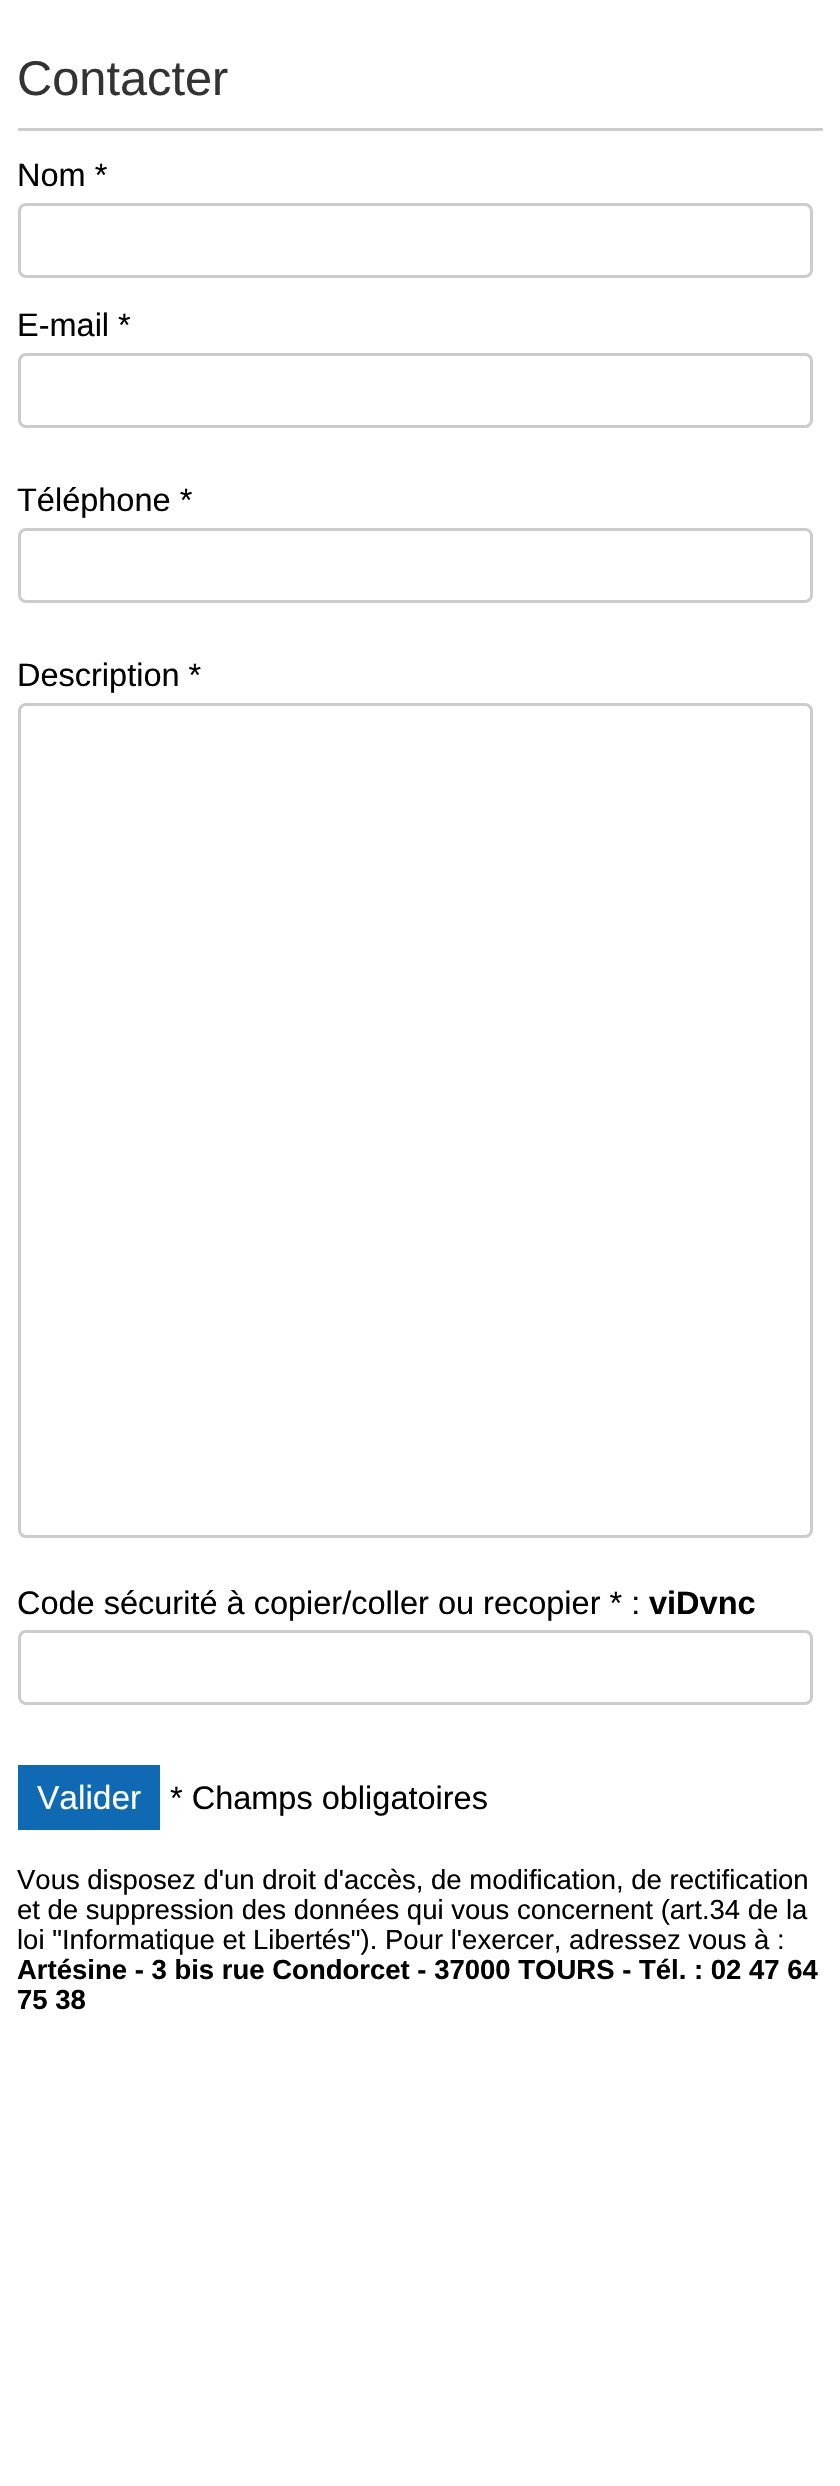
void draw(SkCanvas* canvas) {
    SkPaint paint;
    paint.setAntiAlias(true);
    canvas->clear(0xFFFFFFFF);
    paint.setColor(0xFFCCCCCC);
    canvas->drawRect(SkRect::MakeXYWH(18, 128, 805, 3), paint);
    SkFont font1(fontMgr->matchFamilyStyle("Liberation Sans", SkFontStyle::Normal()), 48.75f);
    font1.setSubpixel(true);
    paint.setColor(0xFF333333);
    canvas->drawString("Contacter", 17, 95, font1, paint);
    SkFont font2(fontMgr->matchFamilyStyle("Liberation Sans", SkFontStyle::Normal()), 32.5f);
    font2.setSubpixel(true);
    paint.setColor(0xFF000000);
    canvas->drawString("Nom *", 17, 186, font2, paint);
    paint.setStyle(SkPaint::kStroke_Style);
    paint.setStrokeWidth(3);
    paint.setColor(0xFFCCCCCC);
    canvas->drawRoundRect(SkRect::MakeXYWH(19.5f, 204.5f, 792, 72), 6.5f, 6.5f, paint);
    paint.setStyle(SkPaint::kFill_Style);
    paint.setColor(0xFF000000);
    canvas->drawString("E-mail *", 17, 336, font2, paint);
    paint.setStyle(SkPaint::kStroke_Style);
    paint.setColor(0xFFCCCCCC);
    canvas->drawRoundRect(SkRect::MakeXYWH(19.5f, 354.5f, 792, 72), 6.5f, 6.5f, paint);
    paint.setStyle(SkPaint::kFill_Style);
    paint.setColor(0xFF000000);
    canvas->drawString("Téléphone *", 17, 511, font2, paint);
    paint.setStyle(SkPaint::kStroke_Style);
    paint.setColor(0xFFCCCCCC);
    canvas->drawRoundRect(SkRect::MakeXYWH(19.5f, 529.5f, 792, 72), 6.5f, 6.5f, paint);
    paint.setStyle(SkPaint::kFill_Style);
    paint.setColor(0xFF000000);
    canvas->drawString("Description *", 17, 686, font2, paint);
    paint.setStyle(SkPaint::kStroke_Style);
    paint.setColor(0xFFCCCCCC);
    canvas->drawRoundRect(SkRect::MakeXYWH(19.5f, 704.5f, 792, 832), 6.5f, 6.5f, paint);
    paint.setStyle(SkPaint::kFill_Style);
    paint.setColor(0xFF000000);
    canvas->drawString("Code sécurité à copier/coller ou recopier * :", 17, 1614, font2, paint);
    SkFont font3(fontMgr->matchFamilyStyle("Liberation Sans", SkFontStyle::Bold()), 32.5f);
    font3.setSubpixel(true);
    canvas->drawString("viDvnc", 649, 1614, font3, paint);
    paint.setStyle(SkPaint::kStroke_Style);
    paint.setColor(0xFFCCCCCC);
    canvas->drawRoundRect(SkRect::MakeXYWH(19.5f, 1631.5f, 792, 72), 6.5f, 6.5f, paint);
    paint.setStyle(SkPaint::kFill_Style);
    paint.setColor(0xFF0F6AB3);
    canvas->drawRect(SkRect::MakeXYWH(18, 1765, 142, 65), paint);
    SkFont font4(fontMgr->matchFamilyStyle("Liberation Sans", SkFontStyle::Normal()), 33.5f);
    font4.setSubpixel(true);
    paint.setColor(0xFFFFFFFF);
    canvas->drawString("Valider", 37, 1809, font4, paint);
    paint.setColor(0xFF000000);
    canvas->drawString("* Champs obligatoires", 170, 1809, font2, paint);
    SkFont font5(fontMgr->matchFamilyStyle("Liberation Sans", SkFontStyle::Normal()), 27.5f);
    font5.setSubpixel(true);
    canvas->drawString("Vous disposez d'un droit d'accès, de modification, de rectification", 17, 1889, font5, paint);
    canvas->drawString("et de suppression des données qui vous concernent (art.34 de la", 17, 1919, font5, paint);
    canvas->drawString("loi \"Informatique et Libertés\"). Pour l'exercer, adressez vous à :", 17, 1949, font5, paint);
    SkFont font6(fontMgr->matchFamilyStyle("Liberation Sans", SkFontStyle::Bold()), 27.5f);
    font6.setSubpixel(true);
    canvas->drawString("Artésine - 3 bis rue Condorcet - 37000 TOURS - Tél. : 02 47 64", 17, 1979, font6, paint);
    canvas->drawString("75 38", 17, 2009, font6, paint);
}
